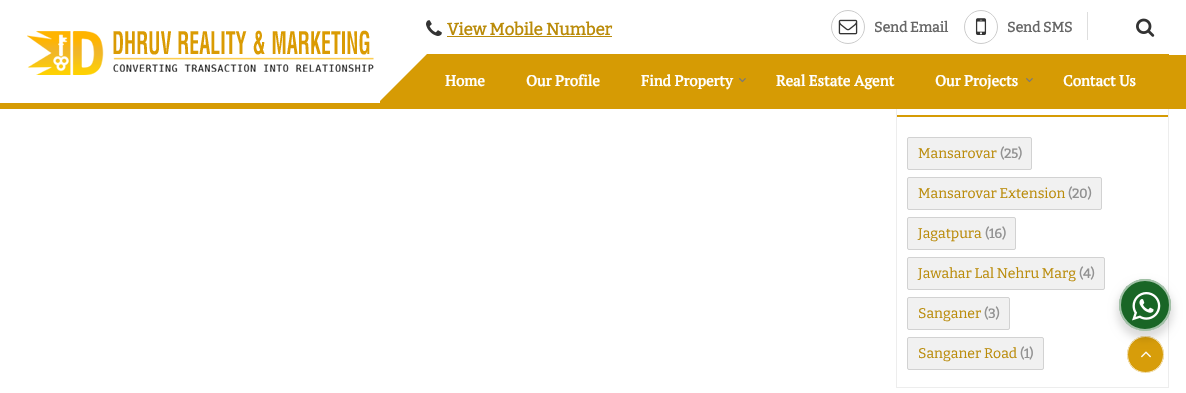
void draw(SkCanvas* canvas) {
    SkPaint paint;
    paint.setAntiAlias(true);
    canvas->clear(0xFFFFFFFF);
    paint.setStyle(SkPaint::kStroke_Style);
    paint.setStrokeWidth(1);
    paint.setColor(0xFFEDEDED);
    canvas->drawRect(SkRect::MakeXYWH(896.5f, 71.5f, 272, 316), paint);
    paint.setStyle(SkPaint::kFill_Style);
    paint.setColor(0xFFFFFFFF);
    canvas->drawRect(SkRect::MakeXYWH(896, 71, 273, 32), paint);
    paint.setColor(0xFFD69B04);
    canvas->drawRect(SkRect::MakeXYWH(380, 54, 789, 55), paint);
    paint.setColor(0xFFFFFFFF);
    canvas->drawPath(SkPathBuilder().moveTo(374, 107).lineTo(374, 54).lineTo(427, 54).close().detach(), paint);
    paint.setColor(0xFFD69B04);
    canvas->drawRect(SkRect::MakeXYWH(0, 103, 380, 6), paint);
    canvas->drawImageRect(SkImages::DeferredFromEncodedData(SkData::MakeFromFileName("img1.png")), SkRect::MakeXYWH(27, 30, 347, 45), SkSamplingOptions());
    canvas->drawImageRect(SkImages::DeferredFromEncodedData(SkData::MakeFromFileName("img2.png")), SkRect::MakeXYWH(426, 20, 16, 16), SkSamplingOptions());
    SkFont font1(fontMgr->matchFamilyStyle("Bitter", SkFontStyle::Bold()), 16.75f);
    font1.setSubpixel(true);
    paint.setColor(0xFFBA8B09);
    canvas->drawString("View Mobile Number", 447, 35, font1, paint);
    canvas->drawRect(SkRect::MakeXYWH(447, 36, 165, 1), paint);
    paint.setStyle(SkPaint::kStroke_Style);
    paint.setColor(0xFFCCCCCC);
    canvas->drawCircle(848, 27, 16.5f, paint);
    canvas->drawImageRect(SkImages::DeferredFromEncodedData(SkData::MakeFromFileName("img3.png")), SkRect::MakeXYWH(838, 19, 20, 16), SkSamplingOptions());
    SkFont font2(fontMgr->matchFamilyStyle("Bitter", SkFontStyle::Bold()), 14);
    font2.setSubpixel(true);
    paint.setStyle(SkPaint::kFill_Style);
    paint.setColor(0xFF666666);
    canvas->drawString("Send Email", 874, 32, font2, paint);
    paint.setStyle(SkPaint::kStroke_Style);
    paint.setColor(0xFFCCCCCC);
    canvas->drawCircle(981, 27, 16.5f, paint);
    canvas->drawImageRect(SkImages::DeferredFromEncodedData(SkData::MakeFromFileName("img4.png")), SkRect::MakeXYWH(975, 18, 12, 17), SkSamplingOptions());
    paint.setStyle(SkPaint::kFill_Style);
    paint.setColor(0xFF666666);
    canvas->drawString("Send SMS", 1007, 32, font2, paint);
    paint.setColor(0xFFDEDEDE);
    canvas->drawRect(SkRect::MakeXYWH(1087, 12, 1, 28), paint);
    canvas->drawImageRect(SkImages::DeferredFromEncodedData(SkData::MakeFromFileName("img5.png")), SkRect::MakeXYWH(1136, 18, 19, 19), SkSamplingOptions());
    SkFont font3(fontMgr->matchFamilyStyle("PT Serif", SkFontStyle::Bold()), 15);
    font3.setSubpixel(true);
    paint.setColor(0xFFFFFFFF);
    canvas->drawString("Home", 445, 86, font3, paint);
    canvas->drawString("Our Profile", 526, 86, font3, paint);
    canvas->drawString("Find Property", 641, 86, font3, paint);
    canvas->drawImageRect(SkImages::DeferredFromEncodedData(SkData::MakeFromFileName("img6.png")), SkRect::MakeXYWH(739, 78, 7, 5), SkSamplingOptions());
    canvas->drawString("Real Estate Agent", 776, 86, font3, paint);
    canvas->drawString("Our Projects", 935, 86, font3, paint);
    canvas->drawImageRect(SkImages::DeferredFromEncodedData(SkData::MakeFromFileName("img6.png")), SkRect::MakeXYWH(1026, 78, 7, 5), SkSamplingOptions());
    canvas->drawString("Contact Us", 1063, 86, font3, paint);
    paint.setColor(0xFFD69B04);
    canvas->drawRect(SkRect::MakeXYWH(1169, 55, 17, 54), paint);
    canvas->drawRect(SkRect::MakeXYWH(897, 115, 271, 2), paint);
    paint.setColor(0xFFF1F1F1);
    canvas->drawRoundRect(SkRect::MakeXYWH(907.5f, 137.5f, 124, 32), 1.5f, 1.5f, paint);
    paint.setStyle(SkPaint::kStroke_Style);
    paint.setColor(0xFFD2D2D2);
    canvas->drawRoundRect(SkRect::MakeXYWH(907.5f, 137.5f, 124, 32), 1.5f, 1.5f, paint);
    SkFont font4(fontMgr->matchFamilyStyle("Bitter", SkFontStyle(100, SkFontStyle::kNormal_Width, SkFontStyle::kUpright_Slant)), 14);
    font4.setSubpixel(true);
    paint.setStyle(SkPaint::kFill_Style);
    paint.setColor(0xFFBA8B09);
    canvas->drawString("Mansarovar", 918, 158, font4, paint);
    SkFont font5(fontMgr->matchFamilyStyle("Bitter", SkFontStyle::Bold()), 13);
    font5.setSubpixel(true);
    paint.setColor(0xFF929292);
    canvas->drawString("(25)", 1000, 158, font5, paint);
    paint.setColor(0xFFF1F1F1);
    canvas->drawRoundRect(SkRect::MakeXYWH(907.5f, 177.5f, 194, 32), 1.5f, 1.5f, paint);
    paint.setStyle(SkPaint::kStroke_Style);
    paint.setColor(0xFFD2D2D2);
    canvas->drawRoundRect(SkRect::MakeXYWH(907.5f, 177.5f, 194, 32), 1.5f, 1.5f, paint);
    paint.setStyle(SkPaint::kFill_Style);
    paint.setColor(0xFFBA8B09);
    canvas->drawString("Mansarovar Extension", 918, 198, font4, paint);
    paint.setColor(0xFF929292);
    canvas->drawString("(20)", 1068, 198, font5, paint);
    paint.setColor(0xFFF1F1F1);
    canvas->drawRoundRect(SkRect::MakeXYWH(907.5f, 217.5f, 108, 32), 1.5f, 1.5f, paint);
    paint.setStyle(SkPaint::kStroke_Style);
    paint.setColor(0xFFD2D2D2);
    canvas->drawRoundRect(SkRect::MakeXYWH(907.5f, 217.5f, 108, 32), 1.5f, 1.5f, paint);
    paint.setStyle(SkPaint::kFill_Style);
    paint.setColor(0xFFBA8B09);
    canvas->drawString("Jagatpura", 918, 238, font4, paint);
    paint.setColor(0xFF929292);
    canvas->drawString("(16)", 985, 238, font5, paint);
    paint.setColor(0xFFF1F1F1);
    canvas->drawRoundRect(SkRect::MakeXYWH(907.5f, 257.5f, 197, 32), 1.5f, 1.5f, paint);
    paint.setStyle(SkPaint::kStroke_Style);
    paint.setColor(0xFFD2D2D2);
    canvas->drawRoundRect(SkRect::MakeXYWH(907.5f, 257.5f, 197, 32), 1.5f, 1.5f, paint);
    paint.setStyle(SkPaint::kFill_Style);
    paint.setColor(0xFFBA8B09);
    canvas->drawString("Jawahar Lal Nehru Marg", 918, 278, font4, paint);
    paint.setColor(0xFF929292);
    canvas->drawString("(4)", 1079, 278, font5, paint);
    paint.setColor(0xFFF1F1F1);
    canvas->drawRoundRect(SkRect::MakeXYWH(907.5f, 297.5f, 102, 32), 1.5f, 1.5f, paint);
    paint.setStyle(SkPaint::kStroke_Style);
    paint.setColor(0xFFD2D2D2);
    canvas->drawRoundRect(SkRect::MakeXYWH(907.5f, 297.5f, 102, 32), 1.5f, 1.5f, paint);
    paint.setStyle(SkPaint::kFill_Style);
    paint.setColor(0xFFBA8B09);
    canvas->drawString("Sanganer", 918, 318, font4, paint);
    paint.setColor(0xFF929292);
    canvas->drawString("(3)", 984, 318, font5, paint);
    paint.setColor(0xFFF1F1F1);
    canvas->drawRoundRect(SkRect::MakeXYWH(907.5f, 337.5f, 136, 32), 1.5f, 1.5f, paint);
    paint.setStyle(SkPaint::kStroke_Style);
    paint.setColor(0xFFD2D2D2);
    canvas->drawRoundRect(SkRect::MakeXYWH(907.5f, 337.5f, 136, 32), 1.5f, 1.5f, paint);
    paint.setStyle(SkPaint::kFill_Style);
    paint.setColor(0xFFBA8B09);
    canvas->drawString("Sanganer Road", 918, 358, font4, paint);
    paint.setColor(0xFF929292);
    canvas->drawString("(1)", 1020, 358, font5, paint);
    paint.setColor(0xFFD79D0A);
    canvas->drawCircle(1145.5f, 354.5f, 18.5f, paint);
    paint.setStyle(SkPaint::kStroke_Style);
    paint.setColor(0xB3FFFFFF);
    canvas->drawCircle(1145.5f, 354.5f, 18, paint);
    canvas->drawImageRect(SkImages::DeferredFromEncodedData(SkData::MakeFromFileName("img8.png")), SkRect::MakeXYWH(1141, 351, 10, 7), SkSamplingOptions());
    paint.setStyle(SkPaint::kFill_Style);
    paint.setColor(0x24000000);
    paint.setMaskFilter(SkMaskFilter::MakeBlur(kNormal_SkBlurStyle, 4));
    canvas->drawRoundRect(SkRect::MakeXYWH(1117, 283, 56, 56), 28, 28, paint);
    paint.setMaskFilter(nullptr);
    paint.setColor(0xFF196626);
    canvas->drawCircle(1145, 305, 26, paint);
    paint.setStyle(SkPaint::kStroke_Style);
    paint.setStrokeWidth(2);
    paint.setColor(0x99FFFFFF);
    canvas->drawCircle(1145, 305, 25, paint);
    canvas->drawImageRect(SkImages::DeferredFromEncodedData(SkData::MakeFromFileName("img7.png")), SkRect::MakeXYWH(1132, 292, 29, 29), SkSamplingOptions());
}
